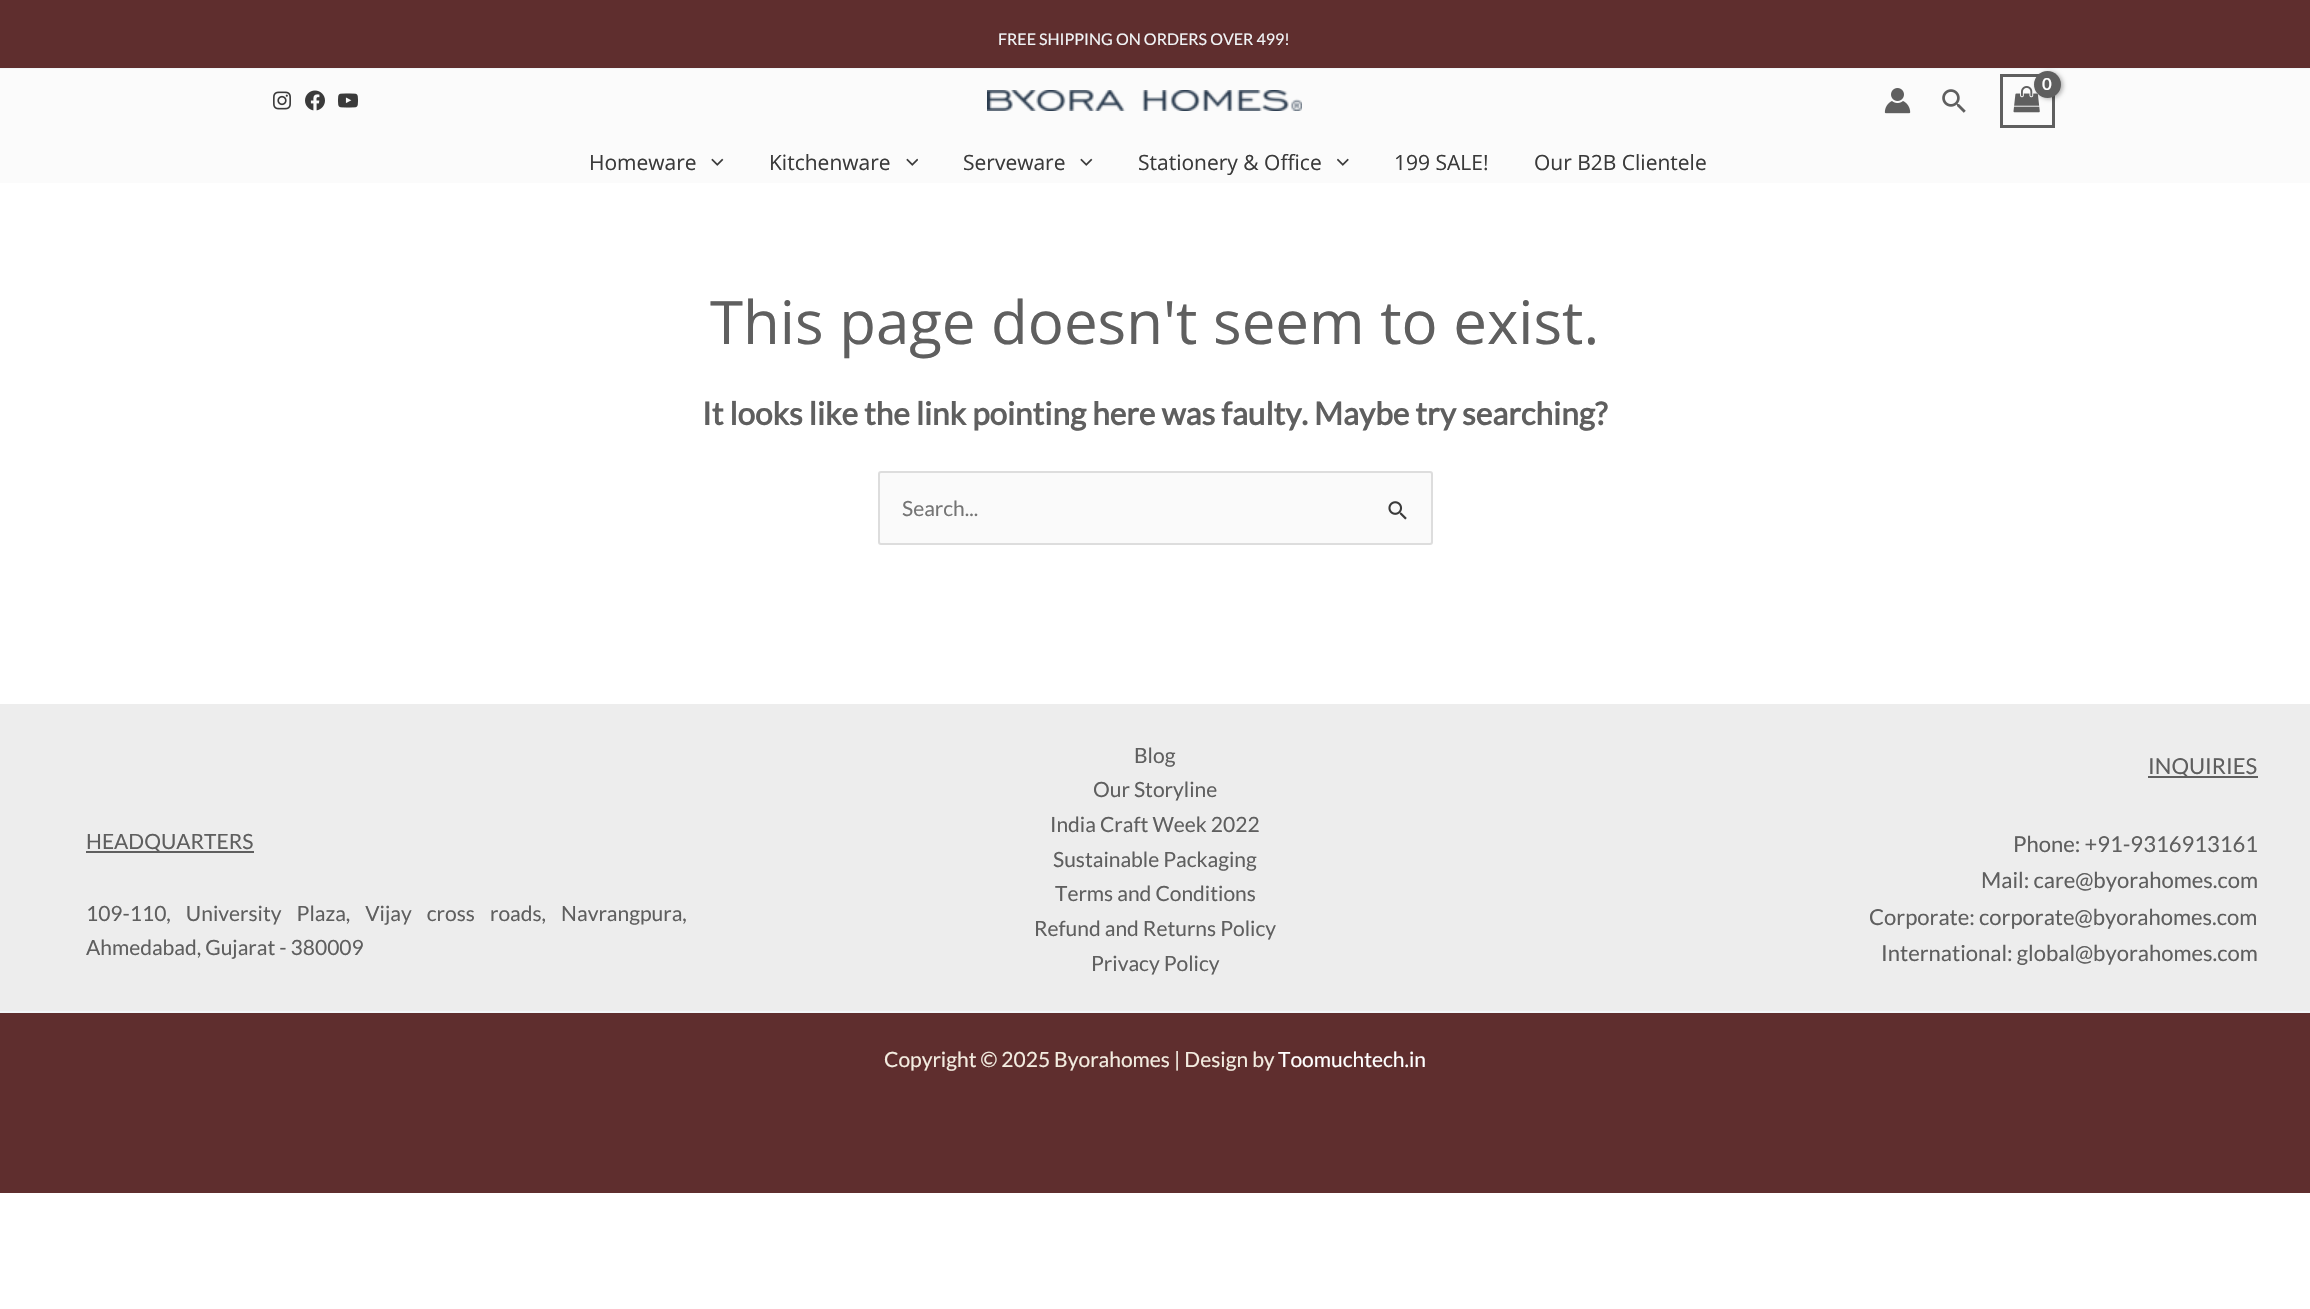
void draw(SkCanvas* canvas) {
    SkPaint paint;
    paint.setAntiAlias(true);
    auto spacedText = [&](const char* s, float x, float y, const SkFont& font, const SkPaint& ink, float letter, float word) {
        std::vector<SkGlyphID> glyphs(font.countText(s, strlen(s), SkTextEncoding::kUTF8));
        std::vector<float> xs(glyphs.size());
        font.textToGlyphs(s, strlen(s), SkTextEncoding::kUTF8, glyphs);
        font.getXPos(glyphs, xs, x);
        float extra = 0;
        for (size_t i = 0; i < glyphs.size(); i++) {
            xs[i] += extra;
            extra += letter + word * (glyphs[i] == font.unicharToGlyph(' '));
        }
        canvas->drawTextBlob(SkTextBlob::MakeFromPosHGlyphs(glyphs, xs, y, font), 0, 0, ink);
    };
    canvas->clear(0xFFFFFFFF);
    paint.setColor(0xFF5F2E2E);
    canvas->drawRect(SkRect::MakeXYWH(0, 0, 2310, 68), paint);
    paint.setColor(0xFFF2F5F7);
    canvas->drawRect(SkRect::MakeXYWH(0, 68, 2310, 1), paint);
    SkFont font1(fontMgr->matchFamilyStyle("Lato", SkFontStyle::Normal()), 16);
    font1.setSubpixel(true);
    canvas->drawString("FREE SHIPPING ON ORDERS OVER 499!", 998, 45, font1, paint);
    paint.setColor(0xFFFBFBFB);
    canvas->drawRect(SkRect::MakeXYWH(0, 69, 2310, 114), paint);
    paint.setStyle(SkPaint::kStroke_Style);
    paint.setStrokeWidth(3);
    paint.setColor(0xFF5F5F5F);
    canvas->drawRect(SkRect::MakeXYWH(2001.5f, 75.5f, 52, 51), paint);
    canvas->drawImageRect(SkImages::DeferredFromEncodedData(SkData::MakeFromFileName("img1.png")), SkRect::MakeXYWH(2013, 86, 27, 27), SkSamplingOptions());
    paint.setStyle(SkPaint::kFill_Style);
    paint.setColor(0x4D000000);
    paint.setMaskFilter(SkMaskFilter::MakeBlur(kNormal_SkBlurStyle, 2));
    canvas->drawRoundRect(SkRect::MakeXYWH(2036, 72, 27, 27), 13.5f, 13.5f, paint);
    paint.setMaskFilter(nullptr);
    paint.setColor(0xFF5F5F5F);
    canvas->drawCircle(2047.5f, 84.5f, 13.5f, paint);
    SkFont font2(fontMgr->matchFamilyStyle("Lato", SkFontStyle::Bold()), 16);
    font2.setSubpixel(true);
    paint.setColor(0xFFFFFFFF);
    spacedText("0", 2042, 90, font2, paint, -1, 0);
    canvas->drawImageRect(SkImages::DeferredFromEncodedData(SkData::MakeFromFileName("img2.png")), SkRect::MakeXYWH(1884, 88, 27, 26), SkSamplingOptions());
    canvas->drawImageRect(SkImages::DeferredFromEncodedData(SkData::MakeFromFileName("img3.png")), SkRect::MakeXYWH(1942, 89, 24, 24), SkSamplingOptions());
    canvas->drawImageRect(SkImages::DeferredFromEncodedData(SkData::MakeFromFileName("img4.png")), SkRect::MakeXYWH(273, 91, 18, 19), SkSamplingOptions());
    canvas->drawImageRect(SkImages::DeferredFromEncodedData(SkData::MakeFromFileName("img5.png")), SkRect::MakeXYWH(305, 90, 20, 21), SkSamplingOptions());
    canvas->drawImageRect(SkImages::DeferredFromEncodedData(SkData::MakeFromFileName("img6.png")), SkRect::MakeXYWH(338, 93, 20, 15), SkSamplingOptions());
    canvas->drawImageRect(SkImages::DeferredFromEncodedData(SkData::MakeFromFileName("img7.png")), SkRect::MakeXYWH(987, 90, 315, 21), SkSamplingOptions());
    SkFont font3(fontMgr->matchFamilyStyle("Open Sans", SkFontStyle::Normal()), 21);
    font3.setSubpixel(true);
    paint.setColor(0xFF3A3A3A);
    canvas->drawString("Homeware", 589, 170, font3, paint);
    canvas->drawImageRect(SkImages::DeferredFromEncodedData(SkData::MakeFromFileName("img8.png")), SkRect::MakeXYWH(711, 158, 13, 8), SkSamplingOptions());
    canvas->drawString("Kitchenware", 769, 170, font3, paint);
    canvas->drawImageRect(SkImages::DeferredFromEncodedData(SkData::MakeFromFileName("img9.png")), SkRect::MakeXYWH(906, 158, 12, 8), SkSamplingOptions());
    canvas->drawString("Serveware", 963, 170, font3, paint);
    canvas->drawImageRect(SkImages::DeferredFromEncodedData(SkData::MakeFromFileName("img8.png")), SkRect::MakeXYWH(1080, 158, 13, 8), SkSamplingOptions());
    canvas->drawString("Stationery & Office", 1138, 170, font3, paint);
    canvas->drawImageRect(SkImages::DeferredFromEncodedData(SkData::MakeFromFileName("img10.png")), SkRect::MakeXYWH(1337, 158, 12, 8), SkSamplingOptions());
    canvas->drawString("199 SALE!", 1394, 170, font3, paint);
    canvas->drawString("Our B2B Clientele", 1534, 170, font3, paint);
    SkFont font4(fontMgr->matchFamilyStyle("Open Sans", SkFontStyle::Normal()), 60);
    font4.setSubpixel(true);
    paint.setColor(0xFF5F5F5F);
    canvas->drawString("This page doesn't seem to exist.", 710, 344, font4, paint);
    SkFont font5(fontMgr->matchFamilyStyle("Lato", SkFontStyle::Bold()), 31.5f);
    font5.setSubpixel(true);
    canvas->drawString("It looks like the link pointing here was faulty. Maybe try searching?", 702, 425, font5, paint);
    paint.setColor(0xFFFAFAFA);
    canvas->drawRoundRect(SkRect::MakeXYWH(879, 472, 553, 72), 2, 2, paint);
    paint.setStyle(SkPaint::kStroke_Style);
    paint.setStrokeWidth(2);
    paint.setColor(0xFFDDDDDD);
    canvas->drawRoundRect(SkRect::MakeXYWH(879, 472, 553, 72), 2, 2, paint);
    SkFont font6(fontMgr->matchFamilyStyle("Lato", SkFontStyle::Normal()), 21);
    font6.setSubpixel(true);
    paint.setStyle(SkPaint::kFill_Style);
    paint.setColor(0xFF757575);
    canvas->drawString("Search...", 902, 516, font6, paint);
    canvas->drawImageRect(SkImages::DeferredFromEncodedData(SkData::MakeFromFileName("img11.png")), SkRect::MakeXYWH(1388, 501, 19, 19), SkSamplingOptions());
    paint.setColor(0xFFEDEDED);
    canvas->drawRect(SkRect::MakeXYWH(0, 704, 2310, 307), paint);
    paint.setColor(0xFF5F5F5F);
    canvas->drawRect(SkRect::MakeXYWH(86, 851, 168, 2), paint);
    canvas->drawString("HEADQUARTERS", 86, 849, font6, paint);
    spacedText("109-110, University Plaza, Vijay cross roads, Navrangpura,", 86, 921, font6, paint, 0, 11);
    canvas->drawString("Ahmedabad, Gujarat - 380009", 86, 955, font6, paint);
    canvas->drawString("Blog", 1134, 763, font6, paint);
    canvas->drawString("Our Storyline", 1093, 797, font6, paint);
    canvas->drawString("India Craft Week 2022", 1050, 832, font6, paint);
    canvas->drawString("Sustainable Packaging", 1053, 867, font6, paint);
    canvas->drawString("Terms and Conditions", 1055, 901, font6, paint);
    canvas->drawString("Refund and Returns Policy", 1034, 936, font6, paint);
    canvas->drawString("Privacy Policy", 1091, 971, font6, paint);
    canvas->drawRect(SkRect::MakeXYWH(2148, 776, 110, 2), paint);
    SkFont font7(fontMgr->matchFamilyStyle("Lato", SkFontStyle::Normal()), 22);
    font7.setSubpixel(true);
    canvas->drawString("INQUIRIES", 2148, 774, font7, paint);
    canvas->drawString("Phone: +91-9316913161", 2013, 852, font7, paint);
    canvas->drawString("Mail: care@byorahomes.com", 1981, 888, font7, paint);
    canvas->drawString("Corporate: corporate@byorahomes.com", 1869, 925, font7, paint);
    canvas->drawString("International: global@byorahomes.com", 1881, 961, font7, paint);
    paint.setColor(0xFF5F2E2E);
    canvas->drawRect(SkRect::MakeXYWH(0, 1013, 2310, 180), paint);
    paint.setColor(0xFFF2F5F7);
    canvas->drawRect(SkRect::MakeXYWH(0, 1011, 2310, 2), paint);
    paint.setColor(0xFFF3ECE0);
    canvas->drawString("Copyright © 2025 Byorahomes | Design by", 884, 1067, font6, paint);
    paint.setColor(0xFFFFFFFF);
    canvas->drawString("Toomuchtech.in", 1278, 1067, font6, paint);
}
